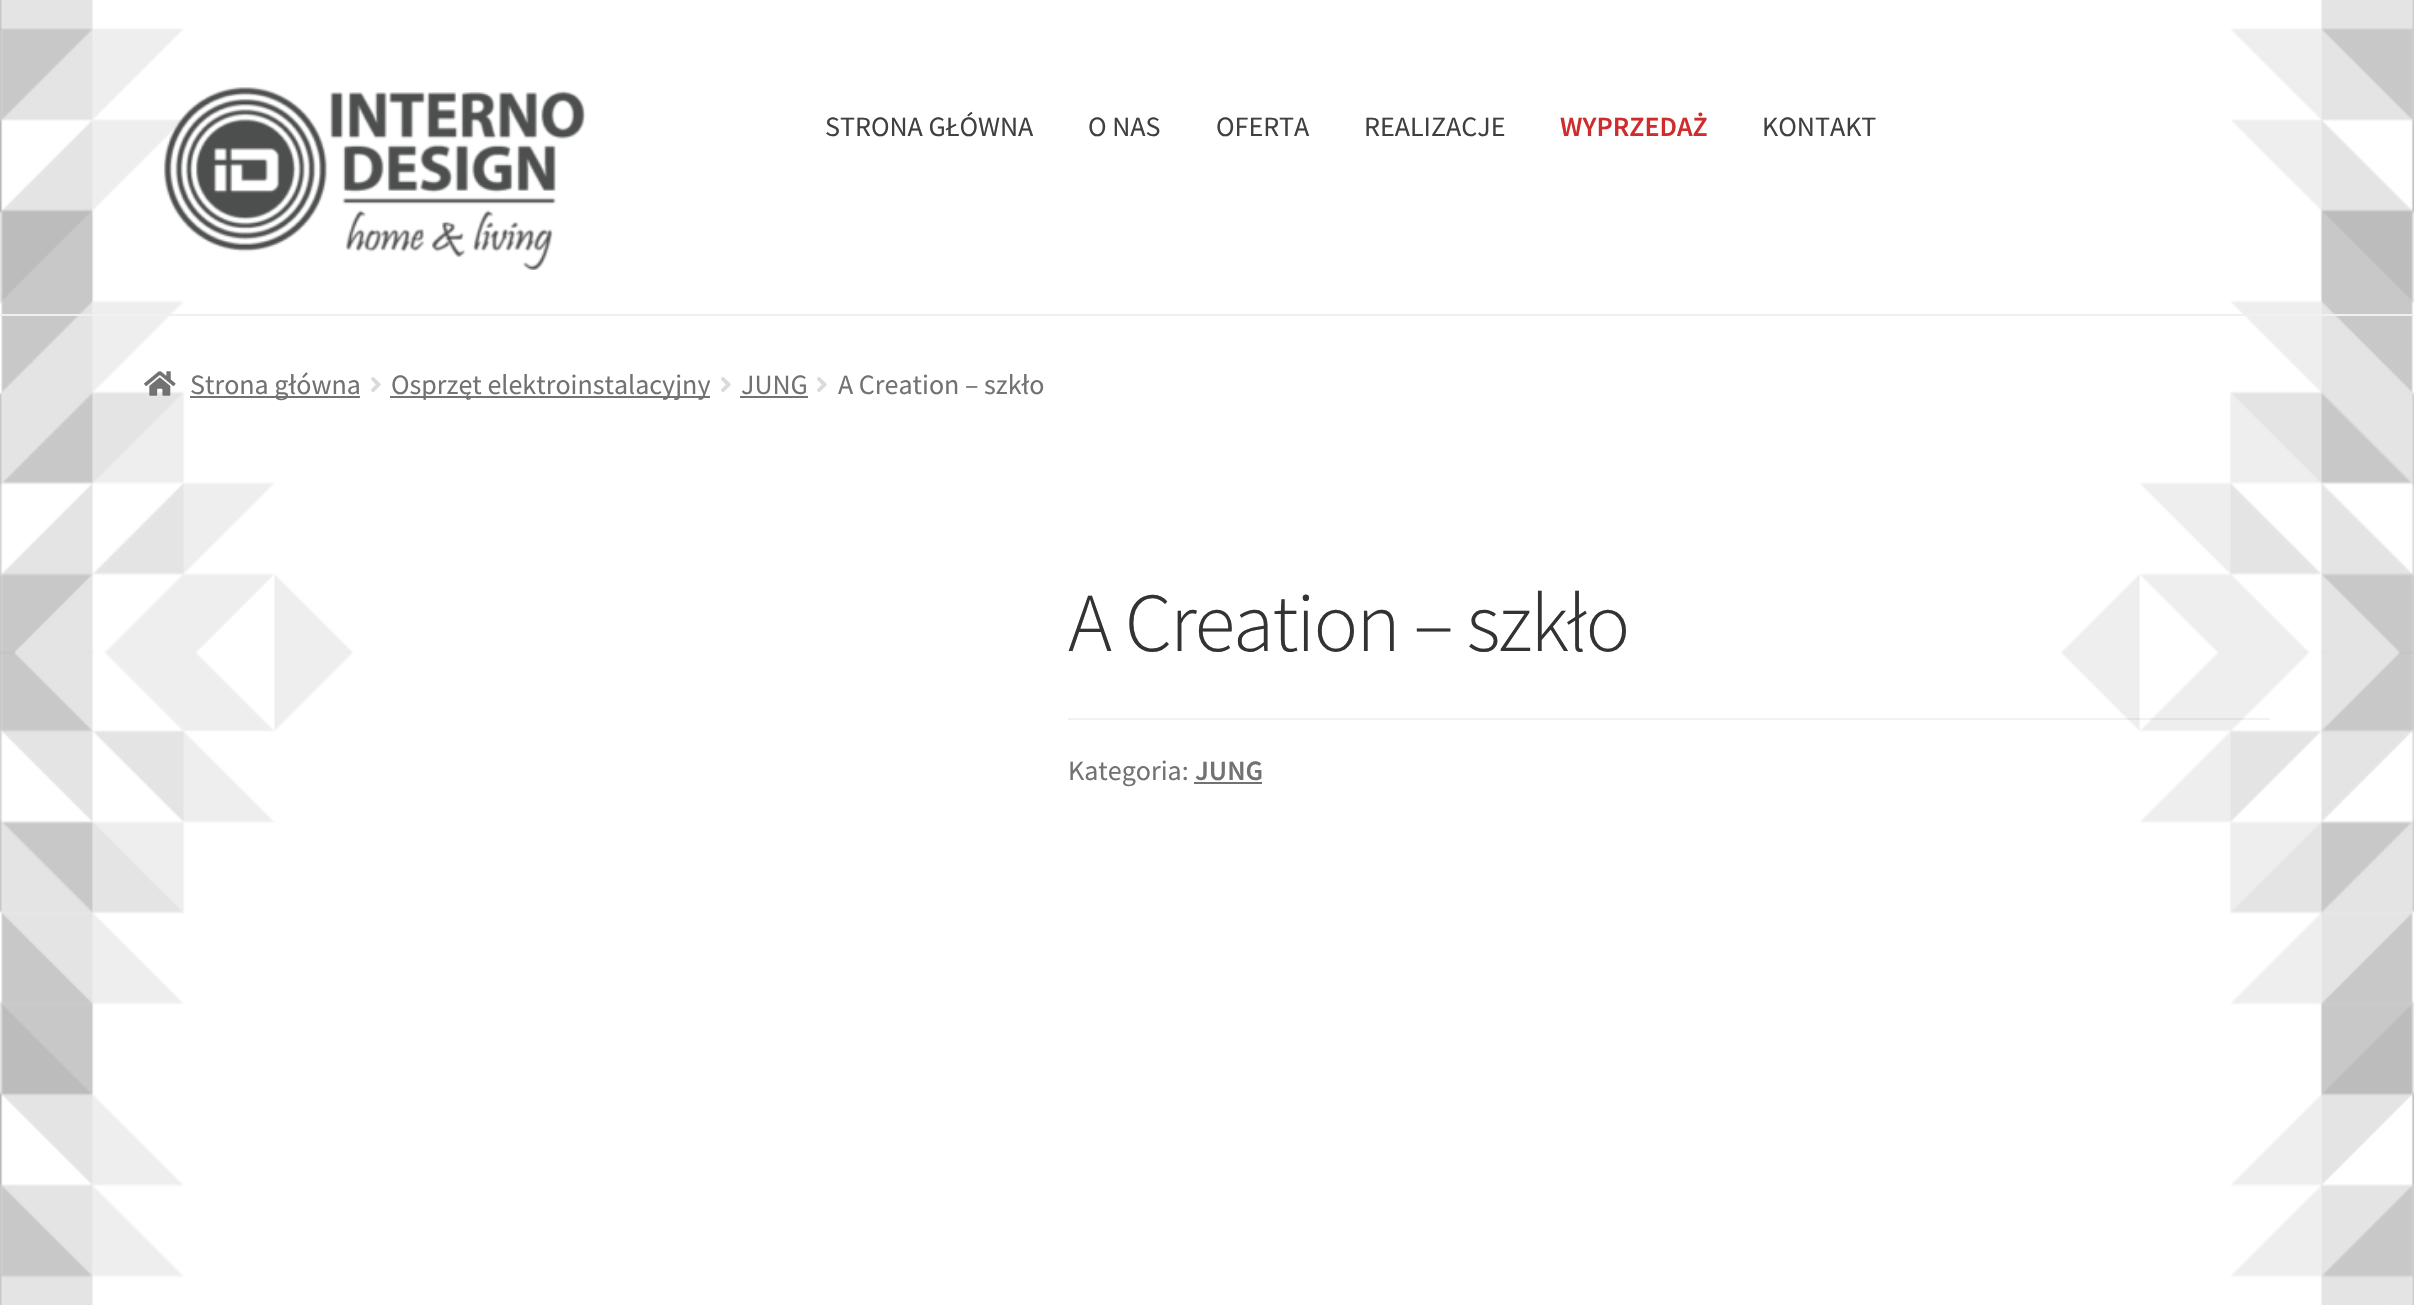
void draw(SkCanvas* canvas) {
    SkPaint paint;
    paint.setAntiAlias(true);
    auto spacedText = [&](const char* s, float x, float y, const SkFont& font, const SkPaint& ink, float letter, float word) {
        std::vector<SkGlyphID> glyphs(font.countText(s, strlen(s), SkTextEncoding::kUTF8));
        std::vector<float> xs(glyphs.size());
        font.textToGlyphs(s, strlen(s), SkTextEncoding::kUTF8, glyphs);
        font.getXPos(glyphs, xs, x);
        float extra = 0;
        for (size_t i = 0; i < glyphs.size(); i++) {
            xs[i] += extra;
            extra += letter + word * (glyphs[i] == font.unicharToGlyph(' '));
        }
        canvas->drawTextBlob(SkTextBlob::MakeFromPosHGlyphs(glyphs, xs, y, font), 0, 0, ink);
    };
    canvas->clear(0xFFFFFFFF);
    canvas->drawImageRect(SkImages::DeferredFromEncodedData(SkData::MakeFromFileName("img1.png")), SkRect::MakeXYWH(0, 0, 2414, 1305), SkSamplingOptions());
    paint.setColor(0xFFF0F0F0);
    canvas->drawRect(SkRect::MakeXYWH(0, 314, 2414, 2), paint);
    canvas->drawImageRect(SkImages::DeferredFromEncodedData(SkData::MakeFromFileName("img2.png")), SkRect::MakeXYWH(163, 87, 423, 183), SkSamplingOptions());
    SkFont font1(fontMgr->matchFamilyStyle("Source Sans Pro", SkFontStyle::Normal()), 28);
    font1.setSubpixel(true);
    paint.setColor(0xFF404040);
    canvas->drawString("STRONA GŁÓWNA", 825, 136, font1, paint);
    canvas->drawString("O NAS", 1088, 136, font1, paint);
    canvas->drawString("OFERTA", 1216, 136, font1, paint);
    canvas->drawString("REALIZACJE", 1364, 136, font1, paint);
    SkFont font2(fontMgr->matchFamilyStyle("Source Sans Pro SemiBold", SkFontStyle(600, SkFontStyle::kNormal_Width, SkFontStyle::kUpright_Slant)), 28);
    font2.setSubpixel(true);
    paint.setColor(0xFFCF2D2D);
    canvas->drawString("WYPRZEDAŻ", 1560, 136, font2, paint);
    paint.setColor(0xFF404040);
    canvas->drawString("KONTAKT", 1762, 136, font1, paint);
    canvas->drawImageRect(SkImages::DeferredFromEncodedData(SkData::MakeFromFileName("img3.png")), SkRect::MakeXYWH(144, 371, 32, 25), SkSamplingOptions());
    paint.setColor(0xFF727272);
    canvas->drawRect(SkRect::MakeXYWH(190, 396, 170, 2), paint);
    canvas->drawString("Strona główna", 190, 394, font1, paint);
    canvas->drawImageRect(SkImages::DeferredFromEncodedData(SkData::MakeFromFileName("img4.png")), SkRect::MakeXYWH(371, 377, 10, 16), SkSamplingOptions());
    canvas->drawRect(SkRect::MakeXYWH(390, 396, 320, 2), paint);
    canvas->drawString("Osprzęt elektroinstalacyjny", 391, 394, font1, paint);
    canvas->drawImageRect(SkImages::DeferredFromEncodedData(SkData::MakeFromFileName("img4.png")), SkRect::MakeXYWH(721, 377, 10, 16), SkSamplingOptions());
    canvas->drawString("JUNG", 741, 394, font1, paint);
    canvas->drawRect(SkRect::MakeXYWH(740, 396, 68, 2), paint);
    canvas->drawImageRect(SkImages::DeferredFromEncodedData(SkData::MakeFromFileName("img4.png")), SkRect::MakeXYWH(817, 377, 10, 16), SkSamplingOptions());
    canvas->drawString("A Creation – szkło", 838, 394, font1, paint);
    SkFont font3(fontMgr->matchFamilyStyle("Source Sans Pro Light", SkFontStyle(300, SkFontStyle::kNormal_Width, SkFontStyle::kUpright_Slant)), 83.75f);
    font3.setSubpixel(true);
    paint.setColor(0xFF333333);
    spacedText("A Creation – szkło", 1068, 651, font3, paint, -2, 0);
    paint.setColor(0x0D000000);
    canvas->drawRect(SkRect::MakeXYWH(1068, 718, 1202, 2), paint);
    paint.setColor(0xFF727272);
    canvas->drawString("Kategoria:", 1068, 780, font1, paint);
    canvas->drawString("JUNG", 1195, 780, font2, paint);
    canvas->drawRect(SkRect::MakeXYWH(1194, 782, 68, 2), paint);
}
